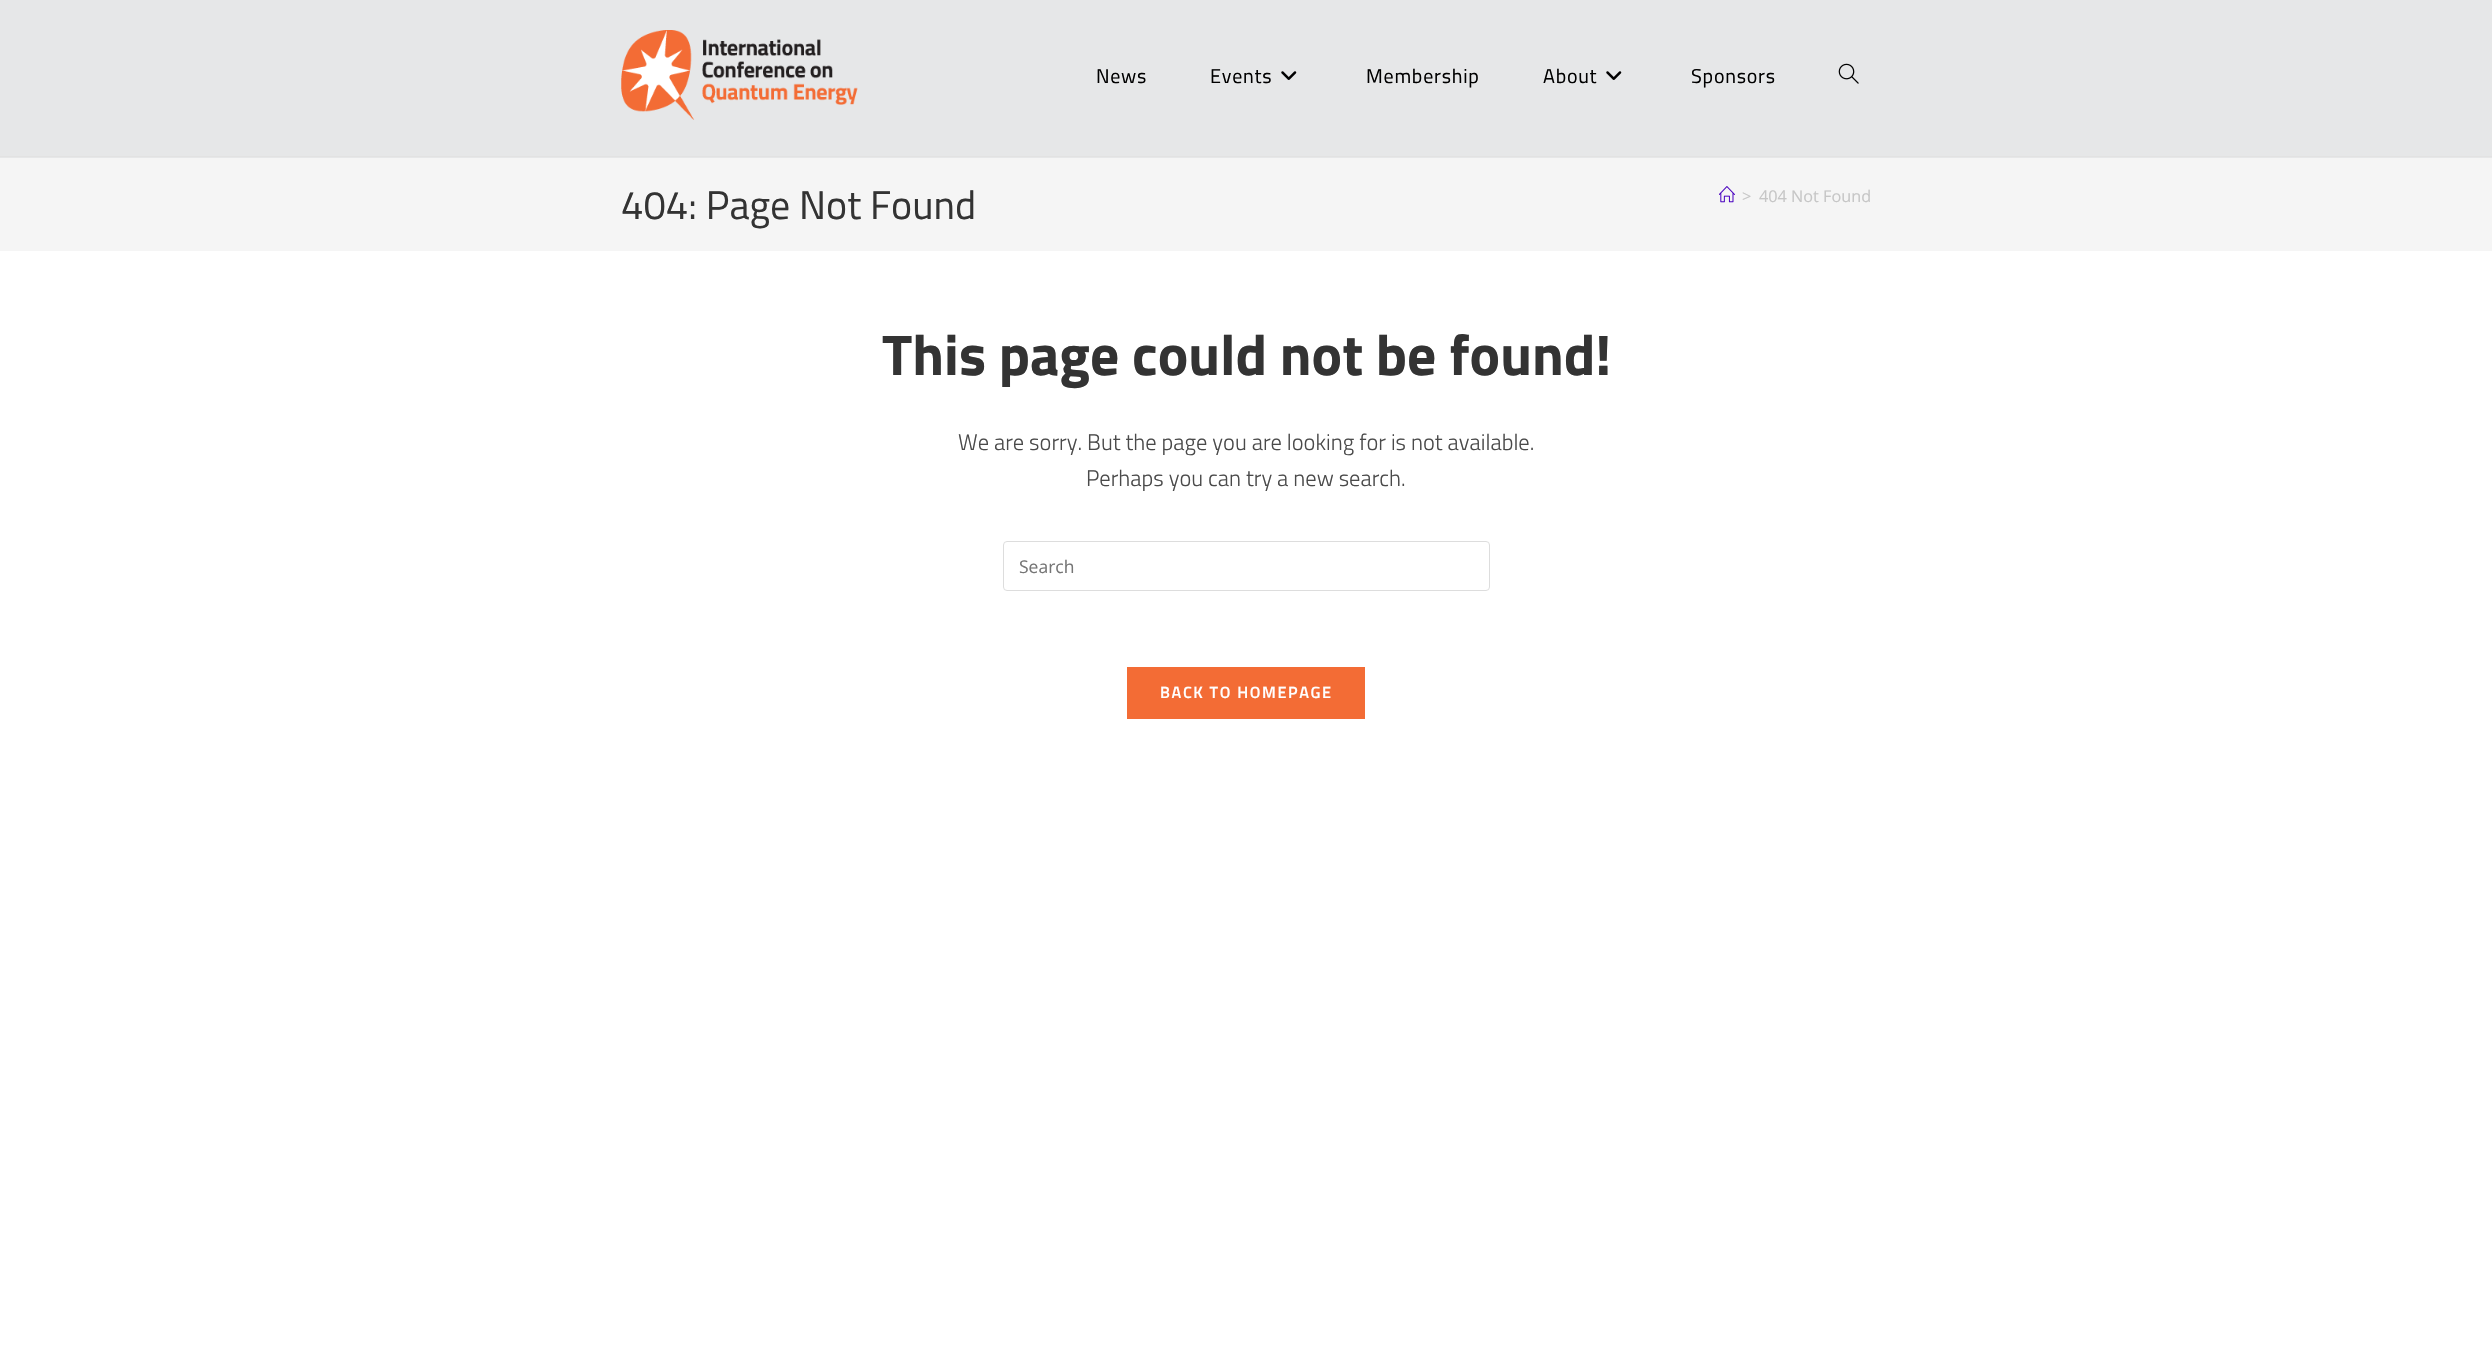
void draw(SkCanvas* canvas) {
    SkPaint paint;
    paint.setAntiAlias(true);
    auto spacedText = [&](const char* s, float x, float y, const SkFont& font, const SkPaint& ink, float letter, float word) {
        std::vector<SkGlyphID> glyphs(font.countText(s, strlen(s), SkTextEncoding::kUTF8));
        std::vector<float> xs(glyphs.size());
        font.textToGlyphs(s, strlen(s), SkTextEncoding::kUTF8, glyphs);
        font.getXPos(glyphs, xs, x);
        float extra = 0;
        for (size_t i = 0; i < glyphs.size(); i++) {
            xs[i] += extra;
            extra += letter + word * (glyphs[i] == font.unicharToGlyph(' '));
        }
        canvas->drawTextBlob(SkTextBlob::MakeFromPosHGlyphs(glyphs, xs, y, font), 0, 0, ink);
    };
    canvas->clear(0xFFFFFFFF);
    paint.setColor(0xFFE6E7E8);
    canvas->drawRect(SkRect::MakeXYWH(0, 0, 2492, 158), paint);
    paint.setColor(0xFFE2E2E2);
    canvas->drawRect(SkRect::MakeXYWH(0, 156, 2492, 1), paint);
    canvas->drawImageRect(SkImages::DeferredFromEncodedData(SkData::MakeFromFileName("img1.png")), SkRect::MakeXYWH(621, 30, 237, 90), SkSamplingOptions());
    SkFont font1(fontMgr->matchFamilyStyle("Titillium Web", SkFontStyle::Normal()), 20);
    font1.setSubpixel(true);
    paint.setColor(0xFF000000);
    spacedText("News", 1096, 83, font1, paint, 0.75f, 0);
    spacedText("Events", 1210, 83, font1, paint, 0.75f, 0);
    canvas->drawImageRect(SkImages::DeferredFromEncodedData(SkData::MakeFromFileName("img2.png")), SkRect::MakeXYWH(1281, 71, 16, 9), SkSamplingOptions());
    spacedText("Membership", 1366, 83, font1, paint, 0.75f, 0);
    spacedText("About", 1543, 83, font1, paint, 0.75f, 0);
    canvas->drawImageRect(SkImages::DeferredFromEncodedData(SkData::MakeFromFileName("img2.png")), SkRect::MakeXYWH(1606, 71, 16, 9), SkSamplingOptions());
    spacedText("Sponsors", 1691, 83, font1, paint, 0.75f, 0);
    canvas->drawImageRect(SkImages::DeferredFromEncodedData(SkData::MakeFromFileName("img3.png")), SkRect::MakeXYWH(1838, 63, 21, 21), SkSamplingOptions());
    paint.setColor(0xFFF5F5F5);
    canvas->drawRect(SkRect::MakeXYWH(0, 158, 2492, 93), paint);
    SkFont font2(fontMgr->matchFamilyStyle("Titillium Web", SkFontStyle::Normal()), 40);
    font2.setSubpixel(true);
    paint.setColor(0xFF333333);
    canvas->drawString("404: Page Not Found", 621, 219, font2, paint);
    canvas->drawImageRect(SkImages::DeferredFromEncodedData(SkData::MakeFromFileName("img4.png")), SkRect::MakeXYWH(1719, 186, 16, 17), SkSamplingOptions());
    SkFont font3(fontMgr->matchFamilyStyle("Open Sans", SkFontStyle::Normal()), 16.25f);
    font3.setSubpixel(true);
    paint.setColor(0xFFC6C6C6);
    canvas->drawString(">", 1742, 202, font3, paint);
    canvas->drawString("404 Not Found", 1759, 202, font3, paint);
    SkFont font4(fontMgr->matchFamilyStyle("Titillium Web", SkFontStyle::Bold()), 57.5f);
    font4.setSubpixel(true);
    paint.setColor(0xFF333333);
    canvas->drawString("This page could not be found!", 882, 375, font4, paint);
    SkFont font5(fontMgr->matchFamilyStyle("Titillium Web", SkFontStyle(300, SkFontStyle::kNormal_Width, SkFontStyle::kUpright_Slant)), 22.5f);
    font5.setSubpixel(true);
    paint.setColor(0xFF4A4A4A);
    canvas->drawString("We are sorry. But the page you are looking for is not available.", 958, 450, font5, paint);
    canvas->drawString("Perhaps you can try a new search.", 1086, 486, font5, paint);
    paint.setStyle(SkPaint::kStroke_Style);
    paint.setStrokeWidth(1);
    paint.setColor(0xFFDDDDDD);
    canvas->drawRoundRect(SkRect::MakeXYWH(1003.5f, 541.5f, 486, 49), 3.5f, 3.5f, paint);
    SkFont font6(fontMgr->matchFamilyStyle("Open Sans", SkFontStyle::Normal()), 17.5f);
    font6.setSubpixel(true);
    paint.setStyle(SkPaint::kFill_Style);
    paint.setColor(0xFF757575);
    canvas->drawString("Search", 1019, 573, font6, paint);
    paint.setColor(0xFFF36C35);
    canvas->drawRect(SkRect::MakeXYWH(1127, 667, 238, 52), paint);
    SkFont font7(fontMgr->matchFamilyStyle("Titillium Web", SkFontStyle(600, SkFontStyle::kNormal_Width, SkFontStyle::kUpright_Slant)), 16.25f);
    font7.setSubpixel(true);
    paint.setColor(0xFFFFFFFF);
    spacedText("BACK TO HOMEPAGE", 1160, 698, font7, paint, 1.6f, 0);
}
